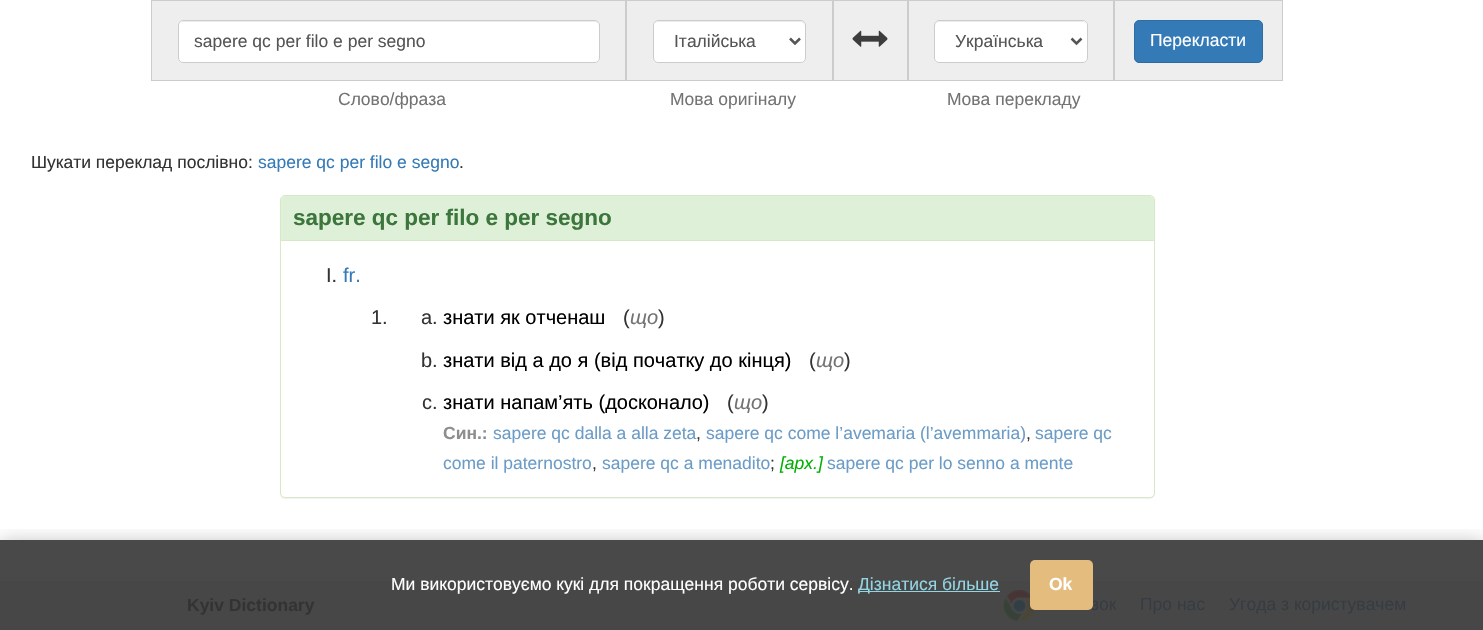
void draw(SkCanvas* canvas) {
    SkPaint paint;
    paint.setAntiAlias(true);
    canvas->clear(0xFFFFFFFF);
    paint.setColor(0xFF494949);
    canvas->drawRect(SkRect::MakeXYWH(0, 540, 1483, 41), paint);
    paint.setColor(0xFFEEEEEE);
    canvas->drawRect(SkRect::MakeXYWH(151.5f, 0.5f, 474, 80), paint);
    paint.setStyle(SkPaint::kStroke_Style);
    paint.setStrokeWidth(1);
    paint.setColor(0xFFCCCCCC);
    canvas->drawRect(SkRect::MakeXYWH(151.5f, 0.5f, 474, 80), paint);
    paint.setStyle(SkPaint::kFill_Style);
    paint.setColor(0xFFFFFFFF);
    canvas->drawRoundRect(SkRect::MakeXYWH(178, 20, 422, 43), 5, 5, paint);
    paint.setColor(0xFFECECEC);
    canvas->drawPath(SkPathBuilder().moveTo(182, 22).lineTo(595, 22).cubicTo(597, 22, 599, 24, 599, 26).lineTo(599, 25).cubicTo(599, 23, 597, 21, 595, 21).lineTo(183, 21).cubicTo(181, 21, 179, 23, 179, 25).lineTo(179, 26).cubicTo(179, 24, 180, 22, 182, 22).close().detach(), paint);
    paint.setStyle(SkPaint::kStroke_Style);
    paint.setColor(0xFFCCCCCC);
    canvas->drawRoundRect(SkRect::MakeXYWH(178.5f, 20.5f, 421, 42), 4.5f, 4.5f, paint);
    SkFont font1(fontMgr->matchFamilyStyle("Liberation Sans", SkFontStyle::Normal()), 17.5f);
    font1.setSubpixel(true);
    paint.setStyle(SkPaint::kFill_Style);
    paint.setColor(0xFF555555);
    canvas->drawString("sapere qc per filo e per segno", 194, 47, font1, paint);
    paint.setColor(0xFF737373);
    canvas->drawString("Слово/фраза", 338, 105, font1, paint);
    paint.setColor(0xFFEEEEEE);
    canvas->drawRect(SkRect::MakeXYWH(626.5f, 0.5f, 206, 80), paint);
    paint.setStyle(SkPaint::kStroke_Style);
    paint.setColor(0xFFCCCCCC);
    canvas->drawRect(SkRect::MakeXYWH(626.5f, 0.5f, 206, 80), paint);
    paint.setStyle(SkPaint::kFill_Style);
    paint.setColor(0xFFFFFFFF);
    canvas->drawRoundRect(SkRect::MakeXYWH(653, 20, 153, 43), 5, 5, paint);
    paint.setColor(0xFFECECEC);
    canvas->drawPath(SkPathBuilder().moveTo(658, 22).lineTo(801, 22).cubicTo(803, 22, 805, 24, 805, 26).lineTo(805, 25).cubicTo(805, 23, 803, 21, 801, 21).lineTo(658, 21).cubicTo(656, 21, 654, 23, 654, 25).lineTo(654, 26).cubicTo(654, 24, 655, 22, 658, 22).close().detach(), paint);
    paint.setStyle(SkPaint::kStroke_Style);
    paint.setColor(0xFFCCCCCC);
    canvas->drawRoundRect(SkRect::MakeXYWH(653.5f, 20.5f, 152, 42), 4.5f, 4.5f, paint);
    paint.setStrokeWidth(2.5f);
    paint.setColor(0xFF555555);
    canvas->drawPath(SkPathBuilder().moveTo(790, 38.5f).lineTo(795, 43.5f).lineTo(800, 38.5f).detach(), paint);
    paint.setStyle(SkPaint::kFill_Style);
    canvas->drawString("Італійська", 674, 47, font1, paint);
    paint.setColor(0xFF737373);
    canvas->drawString("Мова оригіналу", 670, 105, font1, paint);
    paint.setColor(0xFFEEEEEE);
    canvas->drawRect(SkRect::MakeXYWH(833.5f, 0.5f, 74, 80), paint);
    paint.setStyle(SkPaint::kStroke_Style);
    paint.setStrokeWidth(1);
    paint.setColor(0xFFCCCCCC);
    canvas->drawRect(SkRect::MakeXYWH(833.5f, 0.5f, 74, 80), paint);
    canvas->drawImageRect(SkImages::DeferredFromEncodedData(SkData::MakeFromFileName("img1.png")), SkRect::MakeXYWH(852, 30, 36, 17), SkSamplingOptions());
    paint.setStyle(SkPaint::kFill_Style);
    paint.setColor(0xFFEEEEEE);
    canvas->drawRect(SkRect::MakeXYWH(908.5f, 0.5f, 205, 80), paint);
    paint.setStyle(SkPaint::kStroke_Style);
    paint.setColor(0xFFCCCCCC);
    canvas->drawRect(SkRect::MakeXYWH(908.5f, 0.5f, 205, 80), paint);
    paint.setStyle(SkPaint::kFill_Style);
    paint.setColor(0xFFFFFFFF);
    canvas->drawRoundRect(SkRect::MakeXYWH(934, 20, 154, 43), 5, 5, paint);
    paint.setColor(0xFFECECEC);
    canvas->drawPath(SkPathBuilder().moveTo(939, 22).lineTo(1082, 22).cubicTo(1085, 22, 1086, 24, 1086, 26).lineTo(1086, 25).cubicTo(1086, 23, 1084, 21, 1082, 21).lineTo(939, 21).cubicTo(937, 21, 935, 23, 935, 25).lineTo(935, 26).cubicTo(935, 24, 937, 22, 939, 22).close().detach(), paint);
    paint.setStyle(SkPaint::kStroke_Style);
    paint.setColor(0xFFCCCCCC);
    canvas->drawRoundRect(SkRect::MakeXYWH(934.5f, 20.5f, 153, 42), 4.5f, 4.5f, paint);
    paint.setStrokeWidth(2.5f);
    paint.setColor(0xFF555555);
    canvas->drawPath(SkPathBuilder().moveTo(1071.5f, 38.5f).lineTo(1076.5f, 43.5f).lineTo(1081.5f, 38.5f).detach(), paint);
    paint.setStyle(SkPaint::kFill_Style);
    canvas->drawString("Українська", 955, 47, font1, paint);
    paint.setColor(0xFF737373);
    canvas->drawString("Мова перекладу", 947, 105, font1, paint);
    paint.setColor(0xFFEEEEEE);
    canvas->drawRect(SkRect::MakeXYWH(1114.5f, 0.5f, 168, 80), paint);
    paint.setStyle(SkPaint::kStroke_Style);
    paint.setStrokeWidth(1);
    paint.setColor(0xFFCCCCCC);
    canvas->drawRect(SkRect::MakeXYWH(1114.5f, 0.5f, 168, 80), paint);
    paint.setStyle(SkPaint::kFill_Style);
    paint.setColor(0xFF337AB7);
    canvas->drawRoundRect(SkRect::MakeXYWH(1134.5f, 20.5f, 128, 42), 4.5f, 4.5f, paint);
    paint.setStyle(SkPaint::kStroke_Style);
    paint.setColor(0xFF2E6DA4);
    canvas->drawRoundRect(SkRect::MakeXYWH(1134.5f, 20.5f, 128, 42), 4.5f, 4.5f, paint);
    paint.setStyle(SkPaint::kFill_Style);
    paint.setColor(0xFFFFFFFF);
    canvas->drawString("Перекласти", 1150, 46, font1, paint);
    paint.setColor(0xFF333333);
    canvas->drawString("Шукати переклад послівно:", 31, 168, font1, paint);
    paint.setColor(0xFF337AB7);
    canvas->drawString("sapere qc per filo e segno", 258, 168, font1, paint);
    paint.setColor(0xFF333333);
    canvas->drawString(".", 459, 168, font1, paint);
    paint.setColor(0x0D000000);
    paint.setMaskFilter(SkMaskFilter::MakeBlur(kNormal_SkBlurStyle, 0.5f));
    canvas->drawRoundRect(SkRect::MakeXYWH(280, 196, 875, 303), 5, 5, paint);
    paint.setMaskFilter(nullptr);
    paint.setColor(0xFFFFFFFF);
    canvas->drawRoundRect(SkRect::MakeXYWH(280.5f, 195.5f, 874, 302), 4.5f, 4.5f, paint);
    paint.setStyle(SkPaint::kStroke_Style);
    paint.setColor(0xFFD6E9C6);
    canvas->drawRoundRect(SkRect::MakeXYWH(280.5f, 195.5f, 874, 302), 4.5f, 4.5f, paint);
    paint.setStyle(SkPaint::kFill_Style);
    paint.setColor(0xFFDFF0D8);
    canvas->drawPath(SkPathBuilder().moveTo(285, 196).lineTo(1150, 196).cubicTo(1152, 196, 1154, 198, 1154, 200).lineTo(1154, 241).lineTo(281, 241).lineTo(281, 200).cubicTo(281, 198, 283, 196, 285, 196).close().detach(), paint);
    paint.setColor(0xFFD6E9C6);
    canvas->drawRect(SkRect::MakeXYWH(281, 240, 873, 1), paint);
    SkFont font2(fontMgr->matchFamilyStyle("Liberation Sans", SkFontStyle::Bold()), 22.5f);
    font2.setSubpixel(true);
    paint.setColor(0xFF3C763D);
    canvas->drawString("sapere qc per filo e per segno", 293, 225, font2, paint);
    SkFont font3(fontMgr->matchFamilyStyle("Liberation Sans", SkFontStyle::Normal()), 20);
    font3.setSubpixel(true);
    paint.setColor(0xFF333333);
    canvas->drawString("I.", 326, 282, font3, paint);
    paint.setColor(0xFF337AB7);
    canvas->drawString("fr.", 343, 282, font3, paint);
    paint.setColor(0xFF333333);
    canvas->drawString("1.", 371, 324, font3, paint);
    canvas->drawString("a.", 421, 324, font3, paint);
    paint.setColor(0xFF000000);
    canvas->drawString("знати як отченаш", 443, 324, font3, paint);
    paint.setColor(0xFF333333);
    canvas->drawString("(", 623, 324, font3, paint);
    SkFont font4(fontMgr->matchFamilyStyle("Liberation Sans", SkFontStyle::Italic()), 20);
    font4.setSubpixel(true);
    paint.setColor(0xFF737373);
    canvas->drawString("що", 630, 324, font4, paint);
    paint.setColor(0xFF333333);
    canvas->drawString(")", 658, 324, font3, paint);
    canvas->drawString("b.", 421, 367, font3, paint);
    paint.setColor(0xFF000000);
    canvas->drawString("знати від а до я (від початку до кінця)", 443, 367, font3, paint);
    paint.setColor(0xFF333333);
    canvas->drawString("(", 809, 367, font3, paint);
    paint.setColor(0xFF737373);
    canvas->drawString("що", 816, 367, font4, paint);
    paint.setColor(0xFF333333);
    canvas->drawString(")", 844, 367, font3, paint);
    canvas->drawString("c.", 422, 409, font3, paint);
    paint.setColor(0xFF000000);
    canvas->drawString("знати напам’ять (досконало)", 443, 409, font3, paint);
    paint.setColor(0xFF333333);
    canvas->drawString("(", 727, 409, font3, paint);
    paint.setColor(0xFF737373);
    canvas->drawString("що", 734, 409, font4, paint);
    paint.setColor(0xFF333333);
    canvas->drawString(")", 762, 409, font3, paint);
    SkFont font5(fontMgr->matchFamilyStyle("Liberation Sans", SkFontStyle::Bold()), 17.5f);
    font5.setSubpixel(true);
    paint.setColor(0xFF8E8E8E);
    canvas->drawString("Син.:", 443, 439, font5, paint);
    paint.setColor(0xFF6B9CC7);
    canvas->drawString("sapere qc dalla a alla zeta", 493, 439, font1, paint);
    paint.setColor(0xFF333333);
    canvas->drawString(",", 696, 439, font1, paint);
    paint.setColor(0xFF6B9CC7);
    canvas->drawString("sapere qc come l’avemaria (l’avemmaria)", 706, 439, font1, paint);
    paint.setColor(0xFF333333);
    canvas->drawString(",", 1026, 439, font1, paint);
    paint.setColor(0xFF6B9CC7);
    canvas->drawString("sapere qc", 1035, 439, font1, paint);
    canvas->drawString("come il paternostro", 443, 469, font1, paint);
    paint.setColor(0xFF333333);
    canvas->drawString(",", 592, 469, font1, paint);
    paint.setColor(0xFF6B9CC7);
    canvas->drawString("sapere qc a menadito", 602, 469, font1, paint);
    paint.setColor(0xFF333333);
    canvas->drawString(";", 770, 469, font1, paint);
    SkFont font6(fontMgr->matchFamilyStyle("Liberation Sans", SkFontStyle::Italic()), 17.5f);
    font6.setSubpixel(true);
    paint.setColor(0xFF00B103);
    canvas->drawString("[арх.]", 780, 469, font6, paint);
    paint.setColor(0xFF6B9CC7);
    canvas->drawString("sapere qc per lo senno a mente", 827, 469, font1, paint);
    paint.setColor(0xFF474747);
    canvas->drawRect(SkRect::MakeXYWH(0, 581, 1483, 49), paint);
    canvas->drawImageRect(SkImages::DeferredFromEncodedData(SkData::MakeFromFileName("img2.png")), SkRect::MakeXYWH(1003, 590, 32, 32), SkSamplingOptions());
    canvas->save();
    canvas->clipRect(SkRect::MakeXYWH(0, 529, 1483, 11));
    paint.setColor(0x4A000000);
    paint.setMaskFilter(SkMaskFilter::MakeBlur(kNormal_SkBlurStyle, 9.5f));
    canvas->drawRect(SkRect::MakeXYWH(0, 543, 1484, 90), paint);
    paint.setMaskFilter(nullptr);
    canvas->restore();
    paint.setColor(0xFFFFFFFF);
    canvas->drawString("Ми використовуємо кукі для покращення роботи сервісу.", 391, 590, font1, paint);
    paint.setColor(0xFF93D5E3);
    canvas->drawRect(SkRect::MakeXYWH(859, 591, 141, 1), paint);
    canvas->drawString("Дізнатися більше", 858, 590, font1, paint);
    paint.setColor(0xFF353C42);
    canvas->drawString("зок", 1091, 610, font1, paint);
    paint.setColor(0xFFE4BC7E);
    canvas->drawRoundRect(SkRect::MakeXYWH(1030, 560, 63, 50), 5, 5, paint);
    paint.setColor(0xFFFFFFFF);
    canvas->drawString("Ok", 1049, 590, font5, paint);
    paint.setColor(0xFF333333);
    canvas->drawString("Kyiv Dictionary", 187, 611, font5, paint);
    paint.setColor(0xFF353C42);
    canvas->drawString("Про нас", 1140, 610, font1, paint);
    canvas->drawString("Угода з користувачем", 1229, 610, font1, paint);
}
